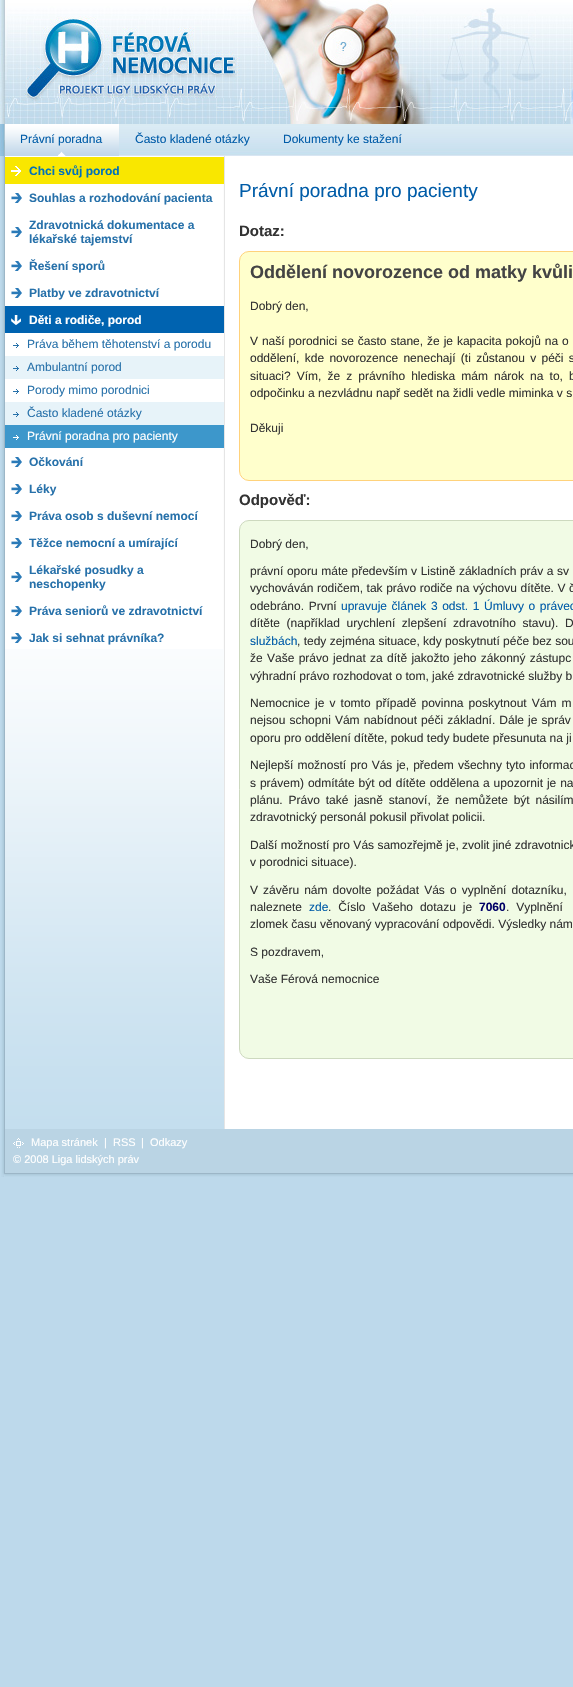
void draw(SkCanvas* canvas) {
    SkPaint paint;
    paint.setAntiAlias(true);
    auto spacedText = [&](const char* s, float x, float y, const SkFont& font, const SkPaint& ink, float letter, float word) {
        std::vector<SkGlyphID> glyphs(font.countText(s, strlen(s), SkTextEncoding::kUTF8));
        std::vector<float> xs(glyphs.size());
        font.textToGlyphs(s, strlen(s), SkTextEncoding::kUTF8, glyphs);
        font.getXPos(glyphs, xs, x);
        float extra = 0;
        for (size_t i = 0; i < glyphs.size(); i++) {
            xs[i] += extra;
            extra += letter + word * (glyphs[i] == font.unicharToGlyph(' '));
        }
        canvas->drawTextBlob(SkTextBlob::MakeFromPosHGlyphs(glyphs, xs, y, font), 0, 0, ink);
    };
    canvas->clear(0xFFBDD9EB);
    paint.setColor(0xFFFFFFFF);
    canvas->drawRect(SkRect::MakeXYWH(225, 156, 348, 973), paint);
    canvas->drawImageRect(SkImages::DeferredFromEncodedData(SkData::MakeFromFileName("img1.png")), SkRect::MakeXYWH(0, 156, 225, 1021), SkSamplingOptions());
    canvas->drawImageRect(SkImages::DeferredFromEncodedData(SkData::MakeFromFileName("img2.png")), SkRect::MakeXYWH(0, 0, 573, 124), SkSamplingOptions());
    canvas->drawImageRect(SkImages::DeferredFromEncodedData(SkData::MakeFromFileName("img3.png")), SkRect::MakeXYWH(26, 19, 208, 79), SkSamplingOptions());
    canvas->drawImageRect(SkImages::DeferredFromEncodedData(SkData::MakeFromFileName("img4.png")), SkRect::MakeXYWH(0, 124, 573, 32), SkSamplingOptions());
    canvas->drawImageRect(SkImages::DeferredFromEncodedData(SkData::MakeFromFileName("img5.png")), SkRect::MakeXYWH(5, 124, 114, 32), SkSamplingOptions());
    canvas->drawImageRect(SkImages::DeferredFromEncodedData(SkData::MakeFromFileName("img6.png")), SkRect::MakeXYWH(58, 151, 8, 5), SkSamplingOptions());
    SkFont font1(fontMgr->matchFamilyStyle("Liberation Sans", SkFontStyle::Normal()), 12);
    font1.setSubpixel(true);
    paint.setColor(0xFF005CA8);
    canvas->drawString("Právní poradna", 20, 143, font1, paint);
    canvas->drawString("Často kladené otázky", 135, 143, font1, paint);
    canvas->drawString("Dokumenty ke stažení", 283, 143, font1, paint);
    canvas->drawImageRect(SkImages::DeferredFromEncodedData(SkData::MakeFromFileName("img7.png")), SkRect::MakeXYWH(5, 649, 219, 480), SkSamplingOptions());
    paint.setColor(0xFFF9E700);
    canvas->drawRect(SkRect::MakeXYWH(5, 157, 219, 27), paint);
    canvas->drawImageRect(SkImages::DeferredFromEncodedData(SkData::MakeFromFileName("img8.png")), SkRect::MakeXYWH(11, 166, 10, 10), SkSamplingOptions());
    SkFont font2(fontMgr->matchFamilyStyle("Liberation Sans", SkFontStyle::Bold()), 12);
    font2.setSubpixel(true);
    paint.setColor(0xFF0072B9);
    canvas->drawString("Chci svůj porod", 29, 175, font2, paint);
    canvas->drawImageRect(SkImages::DeferredFromEncodedData(SkData::MakeFromFileName("img9.png")), SkRect::MakeXYWH(11, 193, 11, 10), SkSamplingOptions());
    paint.setColor(0xFF2771AA);
    canvas->drawString("Souhlas a rozhodování pacienta", 29, 202, font2, paint);
    canvas->drawImageRect(SkImages::DeferredFromEncodedData(SkData::MakeFromFileName("img9.png")), SkRect::MakeXYWH(11, 227, 11, 10), SkSamplingOptions());
    canvas->drawString("Zdravotnická dokumentace a", 29, 229, font2, paint);
    canvas->drawString("lékařské tajemství", 29, 243, font2, paint);
    canvas->drawImageRect(SkImages::DeferredFromEncodedData(SkData::MakeFromFileName("img9.png")), SkRect::MakeXYWH(11, 261, 11, 10), SkSamplingOptions());
    canvas->drawString("Řešení sporů", 29, 270, font2, paint);
    canvas->drawImageRect(SkImages::DeferredFromEncodedData(SkData::MakeFromFileName("img9.png")), SkRect::MakeXYWH(11, 288, 11, 10), SkSamplingOptions());
    canvas->drawString("Platby ve zdravotnictví", 29, 297, font2, paint);
    paint.setColor(0xFF0063B0);
    canvas->drawRect(SkRect::MakeXYWH(5, 306, 219, 27), paint);
    canvas->drawImageRect(SkImages::DeferredFromEncodedData(SkData::MakeFromFileName("img10.png")), SkRect::MakeXYWH(11, 315, 10, 10), SkSamplingOptions());
    paint.setColor(0xFFFFFFFF);
    canvas->drawString("Děti a rodiče, porod", 29, 324, font2, paint);
    canvas->drawRect(SkRect::MakeXYWH(223, 333, 1, 23), paint);
    canvas->drawImageRect(SkImages::DeferredFromEncodedData(SkData::MakeFromFileName("img11.png")), SkRect::MakeXYWH(13, 343, 6, 5), SkSamplingOptions());
    paint.setColor(0xFF2771AA);
    canvas->drawString("Práva během těhotenství a porodu", 27, 348, font1, paint);
    paint.setColor(0xFFE7F3F9);
    canvas->drawRect(SkRect::MakeXYWH(5, 356, 219, 23), paint);
    canvas->drawImageRect(SkImages::DeferredFromEncodedData(SkData::MakeFromFileName("img12.png")), SkRect::MakeXYWH(13, 366, 6, 5), SkSamplingOptions());
    paint.setColor(0xFF2771AA);
    canvas->drawString("Ambulantní porod", 27, 371, font1, paint);
    paint.setColor(0xFFFFFFFF);
    canvas->drawRect(SkRect::MakeXYWH(223, 379, 1, 23), paint);
    canvas->drawImageRect(SkImages::DeferredFromEncodedData(SkData::MakeFromFileName("img11.png")), SkRect::MakeXYWH(13, 389, 6, 5), SkSamplingOptions());
    paint.setColor(0xFF2771AA);
    canvas->drawString("Porody mimo porodnici", 27, 394, font1, paint);
    paint.setColor(0xFFE7F3F9);
    canvas->drawRect(SkRect::MakeXYWH(5, 402, 219, 23), paint);
    canvas->drawImageRect(SkImages::DeferredFromEncodedData(SkData::MakeFromFileName("img12.png")), SkRect::MakeXYWH(13, 412, 6, 5), SkSamplingOptions());
    paint.setColor(0xFF2771AA);
    canvas->drawString("Často kladené otázky", 27, 417, font1, paint);
    paint.setColor(0xFF3D97CB);
    canvas->drawRect(SkRect::MakeXYWH(5, 425, 219, 23), paint);
    canvas->drawImageRect(SkImages::DeferredFromEncodedData(SkData::MakeFromFileName("img13.png")), SkRect::MakeXYWH(13, 435, 6, 5), SkSamplingOptions());
    paint.setColor(0xFFFFFFFF);
    canvas->drawString("Právní poradna pro pacienty", 27, 440, font1, paint);
    canvas->drawImageRect(SkImages::DeferredFromEncodedData(SkData::MakeFromFileName("img9.png")), SkRect::MakeXYWH(11, 457, 11, 10), SkSamplingOptions());
    paint.setColor(0xFF2771AA);
    canvas->drawString("Očkování", 29, 466, font2, paint);
    canvas->drawImageRect(SkImages::DeferredFromEncodedData(SkData::MakeFromFileName("img9.png")), SkRect::MakeXYWH(11, 484, 11, 10), SkSamplingOptions());
    canvas->drawString("Léky", 29, 493, font2, paint);
    canvas->drawImageRect(SkImages::DeferredFromEncodedData(SkData::MakeFromFileName("img9.png")), SkRect::MakeXYWH(11, 511, 11, 10), SkSamplingOptions());
    canvas->drawString("Práva osob s duševní nemocí", 29, 520, font2, paint);
    canvas->drawImageRect(SkImages::DeferredFromEncodedData(SkData::MakeFromFileName("img9.png")), SkRect::MakeXYWH(11, 538, 11, 10), SkSamplingOptions());
    canvas->drawString("Těžce nemocní a umírající", 29, 547, font2, paint);
    canvas->drawImageRect(SkImages::DeferredFromEncodedData(SkData::MakeFromFileName("img9.png")), SkRect::MakeXYWH(11, 572, 11, 10), SkSamplingOptions());
    canvas->drawString("Lékařské posudky a", 29, 574, font2, paint);
    canvas->drawString("neschopenky", 29, 588, font2, paint);
    canvas->drawImageRect(SkImages::DeferredFromEncodedData(SkData::MakeFromFileName("img9.png")), SkRect::MakeXYWH(11, 606, 11, 10), SkSamplingOptions());
    canvas->drawString("Práva seniorů ve zdravotnictví", 29, 615, font2, paint);
    canvas->drawImageRect(SkImages::DeferredFromEncodedData(SkData::MakeFromFileName("img9.png")), SkRect::MakeXYWH(11, 633, 11, 10), SkSamplingOptions());
    canvas->drawString("Jak si sehnat právníka?", 29, 642, font2, paint);
    SkFont font3(fontMgr->matchFamilyStyle("Liberation Sans", SkFontStyle::Normal()), 19);
    font3.setSubpixel(true);
    paint.setColor(0xFF005CA8);
    canvas->drawString("Právní poradna pro pacienty", 239, 197, font3, paint);
    SkFont font4(fontMgr->matchFamilyStyle("Liberation Sans", SkFontStyle::Bold()), 15);
    font4.setSubpixel(true);
    paint.setColor(0xFF333333);
    canvas->drawString("Dotaz:", 239, 236, font4, paint);
    paint.setColor(0xFFFFFFCC);
    canvas->drawRoundRect(SkRect::MakeXYWH(239.5f, 251.5f, 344, 229), 9.5f, 9.5f, paint);
    paint.setStyle(SkPaint::kStroke_Style);
    paint.setStrokeWidth(1);
    paint.setColor(0xFFFFD27B);
    canvas->drawRoundRect(SkRect::MakeXYWH(239.5f, 251.5f, 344, 229), 9.5f, 9.5f, paint);
    SkFont font5(fontMgr->matchFamilyStyle("Liberation Sans", SkFontStyle::Bold()), 18);
    font5.setSubpixel(true);
    paint.setStyle(SkPaint::kFill_Style);
    paint.setColor(0xFF444444);
    canvas->drawString("Oddělení novorozence od matky kvůli", 250, 278, font5, paint);
    paint.setColor(0xFF333333);
    canvas->drawString("Dobrý den,", 250, 310, font1, paint);
    spacedText("V naší porodnici se často stane, že je kapacita pokojů na o", 250, 345, font1, paint, 0, 0.6f);
    spacedText("oddělení, kde novorozence nenechají (ti zůstanou v péči s", 250, 362, font1, paint, 0, 2);
    spacedText("situaci? Vím, že z právního hlediska mám nárok na to, b", 250, 380, font1, paint, 0, 2.75f);
    canvas->drawString("odpočinku a nezvládnu např sedět na židli vedle miminka v s", 250, 397, font1, paint);
    canvas->drawString("Děkuji", 250, 432, font1, paint);
    canvas->drawString("Odpověď:", 239, 505, font4, paint);
    paint.setColor(0xFFF1FBE5);
    canvas->drawRoundRect(SkRect::MakeXYWH(239.5f, 520.5f, 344, 538), 9.5f, 9.5f, paint);
    paint.setStyle(SkPaint::kStroke_Style);
    paint.setColor(0xFFCDD9BF);
    canvas->drawRoundRect(SkRect::MakeXYWH(239.5f, 520.5f, 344, 538), 9.5f, 9.5f, paint);
    paint.setStyle(SkPaint::kFill_Style);
    paint.setColor(0xFF333333);
    canvas->drawString("Dobrý den,", 250, 548, font1, paint);
    spacedText("právní oporu máte především v Listině základních práv a sv", 250, 575, font1, paint, 0, 0.25f);
    spacedText("vychováván rodičem, tak právo rodiče na výchovu dítěte. V č", 250, 592, font1, paint, 0, 0.25f);
    spacedText("odebráno. První", 250, 610, font1, paint, 0, 1.25f);
    paint.setColor(0xFF005CA8);
    spacedText("upravuje článek 3 odst. 1 Úmluvy o právec", 341, 610, font1, paint, 0, 1.25f);
    paint.setColor(0xFF333333);
    spacedText("dítěte (například urychlení zlepšení zdravotního stavu). D", 250, 627, font1, paint, 0, 3.25f);
    paint.setColor(0xFF005CA8);
    canvas->drawString("službách", 250, 645, font1, paint);
    paint.setColor(0xFF333333);
    canvas->drawString(", tedy zejména situace, kdy poskytnutí péče bez sou", 297, 645, font1, paint);
    spacedText("že Vaše právo jednat za dítě jakožto jeho zákonný zástupc", 250, 662, font1, paint, 0, 1);
    canvas->drawString("výhradní právo rozhodovat o tom, jaké zdravotnické služby b", 250, 680, font1, paint);
    spacedText("Nemocnice je v tomto případě povinna poskytnout Vám m", 250, 707, font1, paint, 0, 1.75f);
    spacedText("nejsou schopni Vám nabídnout péči základní. Dále je správ", 250, 724, font1, paint, 0, 0.75f);
    canvas->drawString("oporu pro oddělení dítěte, pokud tedy budete přesunuta na ji", 250, 742, font1, paint);
    spacedText("Nejlepší možností pro Vás je, předem všechny tyto informac", 250, 769, font1, paint, 0, 0.75f);
    spacedText("s právem) odmítáte být od dítěte oddělena a upozornit je na", 250, 787, font1, paint, 0, 0.6f);
    spacedText("plánu. Právo také jasně stanoví, že nemůžete být násilím", 250, 804, font1, paint, 0, 2.5f);
    canvas->drawString("zdravotnický personál pokusil přivolat policii.", 250, 821, font1, paint);
    canvas->drawString("Další možností pro Vás samozřejmě je, zvolit jiné zdravotnick", 250, 849, font1, paint);
    canvas->drawString("v porodnici situace).", 250, 866, font1, paint);
    spacedText("V závěru nám dovolte požádat Vás o vyplnění dotazníku,", 250, 894, font1, paint, 0, 1.75f);
    canvas->drawString("naleznete", 250, 911, font1, paint);
    paint.setColor(0xFF005CA8);
    canvas->drawString("zde", 309, 911, font1, paint);
    paint.setColor(0xFF333333);
    spacedText(". Číslo Vašeho dotazu je", 328, 911, font1, paint, 0, 3.5f);
    paint.setColor(0xFF000066);
    canvas->drawString("7060", 479, 911, font2, paint);
    paint.setColor(0xFF333333);
    spacedText(". Vyplnění", 506, 911, font1, paint, 0, 3.5f);
    canvas->drawString("zlomek času věnovaný vypracování odpovědi. Výsledky nám", 250, 928, font1, paint);
    canvas->drawString("S pozdravem,", 250, 956, font1, paint);
    canvas->drawString("Vaše Férová nemocnice", 250, 983, font1, paint);
    canvas->drawImageRect(SkImages::DeferredFromEncodedData(SkData::MakeFromFileName("img14.png")), SkRect::MakeXYWH(2, 1129, 571, 48), SkSamplingOptions());
    canvas->drawImageRect(SkImages::DeferredFromEncodedData(SkData::MakeFromFileName("img15.png")), SkRect::MakeXYWH(13, 1138, 11, 10), SkSamplingOptions());
    SkFont font6(fontMgr->matchFamilyStyle("Liberation Sans", SkFontStyle::Normal()), 11);
    font6.setSubpixel(true);
    paint.setColor(0xFFFFFFFF);
    canvas->drawString("Mapa stránek", 31, 1146, font6, paint);
    canvas->drawString("|", 104, 1146, font6, paint);
    canvas->drawString("RSS", 113, 1146, font6, paint);
    canvas->drawString("|", 141, 1146, font6, paint);
    canvas->drawString("Odkazy", 150, 1146, font6, paint);
    canvas->drawString("© 2008 Liga lidských práv", 13, 1163, font6, paint);
}
